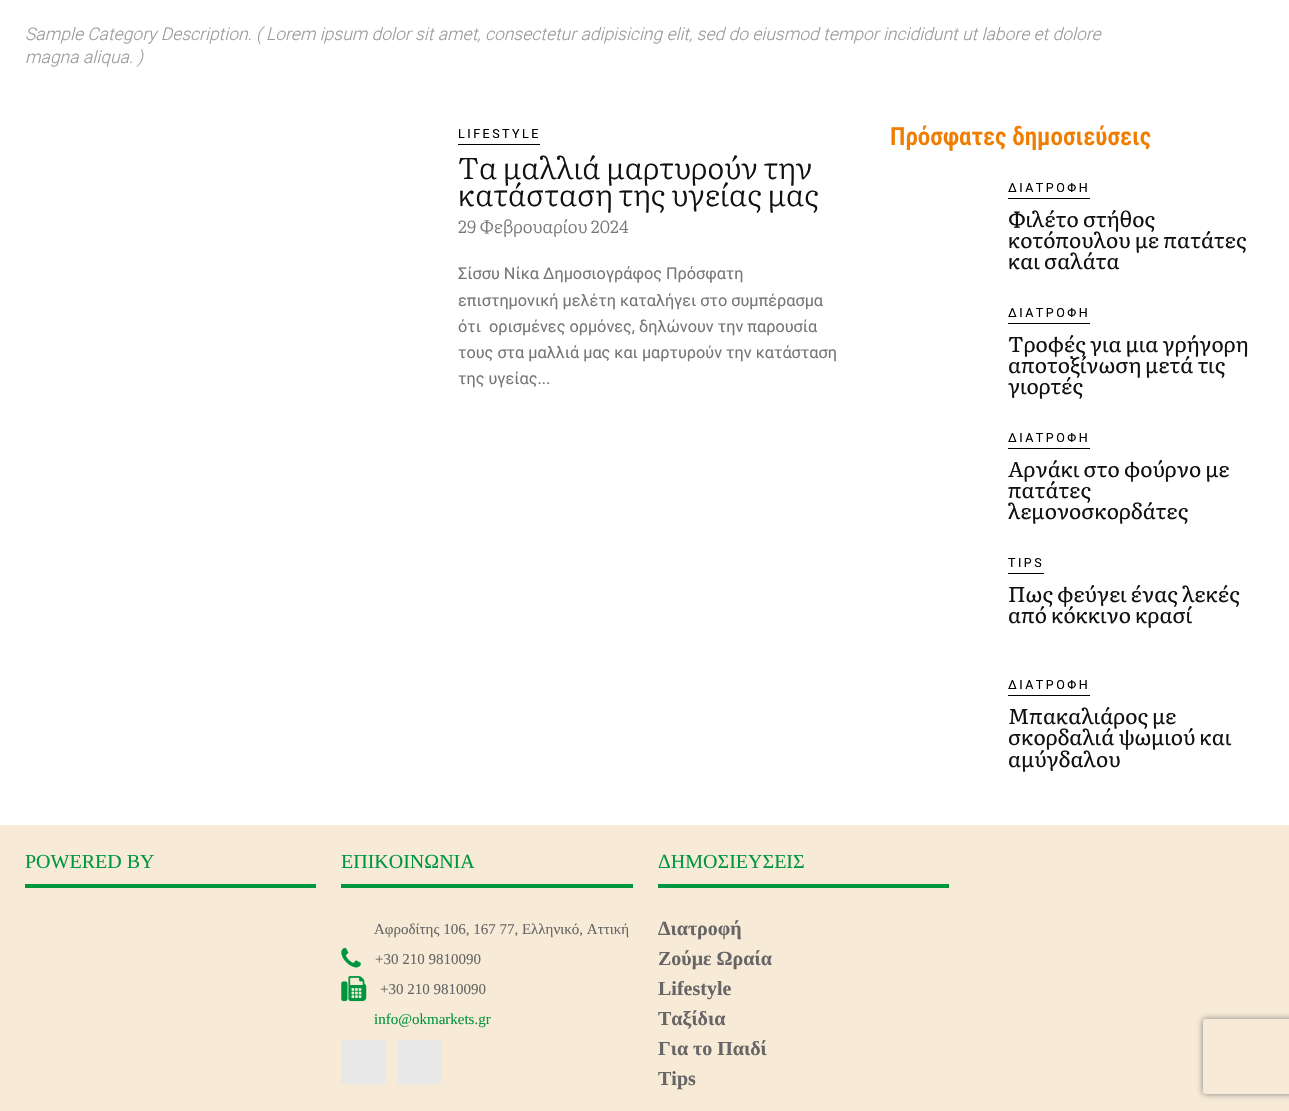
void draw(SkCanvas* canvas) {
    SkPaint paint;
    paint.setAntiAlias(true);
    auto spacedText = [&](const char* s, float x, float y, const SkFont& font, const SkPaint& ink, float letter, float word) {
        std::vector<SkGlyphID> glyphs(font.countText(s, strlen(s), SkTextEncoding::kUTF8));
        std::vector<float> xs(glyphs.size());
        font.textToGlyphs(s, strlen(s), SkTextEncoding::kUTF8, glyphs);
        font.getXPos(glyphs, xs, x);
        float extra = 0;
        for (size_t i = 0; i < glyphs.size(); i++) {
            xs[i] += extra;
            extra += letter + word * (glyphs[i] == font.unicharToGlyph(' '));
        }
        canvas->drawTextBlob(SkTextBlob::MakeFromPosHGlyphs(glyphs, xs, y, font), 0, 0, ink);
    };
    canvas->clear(0xFFFFFFFF);
    SkFont font1(fontMgr->matchFamilyStyle("Roboto", SkFontStyle(300, SkFontStyle::kNormal_Width, SkFontStyle::kItalic_Slant)), 17.5f);
    font1.setSubpixel(true);
    paint.setColor(0xFF999999);
    canvas->drawString("Sample Category Description. ( Lorem ipsum dolor sit amet, consectetur adipisicing elit, sed do eiusmod tempor incididunt ut labore et dolore", 25, 40, font1, paint);
    canvas->drawString("magna aliqua. )", 25, 63, font1, paint);
    paint.setColor(0xFF000000);
    canvas->drawRect(SkRect::MakeXYWH(458, 144, 82, 1), paint);
    SkFont font2(fontMgr->matchFamilyStyle("Roboto", SkFontStyle::Normal()), 12.5f);
    font2.setSubpixel(true);
    spacedText("LIFESTYLE", 458, 138, font2, paint, 2.5f, 0);
    SkFont font3(fontMgr->matchFamilyStyle("Literata", SkFontStyle(300, SkFontStyle::kNormal_Width, SkFontStyle::kUpright_Slant)), 30);
    font3.setSubpixel(true);
    paint.setColor(0xFF111111);
    canvas->drawString("Τα μαλλιά μαρτυρούν την", 458, 179, font3, paint);
    canvas->drawString("κατάσταση της υγείας μας", 458, 206, font3, paint);
    SkFont font4(fontMgr->matchFamilyStyle("Literata", SkFontStyle(300, SkFontStyle::kNormal_Width, SkFontStyle::kUpright_Slant)), 17.5f);
    font4.setSubpixel(true);
    paint.setColor(0xFF767676);
    canvas->drawString("29 Φεβρουαρίου 2024", 458, 233, font4, paint);
    SkFont font5(fontMgr->matchFamilyStyle("Roboto", SkFontStyle::Normal()), 16.25f);
    font5.setSubpixel(true);
    canvas->drawString("Σίσσυ Νίκα Δημοσιογράφος Πρόσφατη", 458, 279, font5, paint);
    canvas->drawString("επιστημονική μελέτη καταλήγει στο συμπέρασμα", 458, 306, font5, paint);
    canvas->drawString("ότι  ορισμένες ορμόνες, δηλώνουν την παρουσία", 458, 332, font5, paint);
    canvas->drawString("τους στα μαλλιά μας και μαρτυρούν την κατάσταση", 458, 358, font5, paint);
    canvas->drawString("της υγείας...", 458, 384, font5, paint);
    SkFont font6(fontMgr->matchFamilyStyle("Roboto Condensed", SkFontStyle(600, SkFontStyle::kNormal_Width, SkFontStyle::kUpright_Slant)), 25);
    font6.setSubpixel(true);
    paint.setColor(0xFFF07D00);
    canvas->drawString("Πρόσφατες δημοσιεύσεις", 890, 145, font6, paint);
    paint.setColor(0xFF000000);
    canvas->drawRect(SkRect::MakeXYWH(1008, 198, 82, 1), paint);
    spacedText("ΔΙΑΤΡΟΦΗ", 1008, 192, font2, paint, 2.5f, 0);
    SkFont font7(fontMgr->matchFamilyStyle("Literata", SkFontStyle::Normal()), 21.25f);
    font7.setSubpixel(true);
    paint.setColor(0xFF111111);
    canvas->drawString("Φιλέτο στήθος", 1008, 227, font7, paint);
    canvas->drawString("κοτόπουλου με πατάτες", 1008, 248, font7, paint);
    canvas->drawString("και σαλάτα", 1008, 269, font7, paint);
    paint.setColor(0xFF000000);
    canvas->drawRect(SkRect::MakeXYWH(1008, 323, 82, 1), paint);
    spacedText("ΔΙΑΤΡΟΦΗ", 1008, 317, font2, paint, 2.5f, 0);
    paint.setColor(0xFF111111);
    canvas->drawString("Tροφές για μια γρήγορη", 1008, 352, font7, paint);
    canvas->drawString("αποτοξίνωση μετά τις", 1008, 373, font7, paint);
    canvas->drawString("γιορτές", 1008, 394, font7, paint);
    paint.setColor(0xFF000000);
    canvas->drawRect(SkRect::MakeXYWH(1008, 448, 82, 1), paint);
    spacedText("ΔΙΑΤΡΟΦΗ", 1008, 442, font2, paint, 2.5f, 0);
    paint.setColor(0xFF111111);
    canvas->drawString("Αρνάκι στο φούρνο με", 1008, 477, font7, paint);
    canvas->drawString("πατάτες", 1008, 498, font7, paint);
    canvas->drawString("λεμονοσκορδάτες", 1008, 519, font7, paint);
    paint.setColor(0xFF000000);
    canvas->drawRect(SkRect::MakeXYWH(1008, 573, 36, 1), paint);
    spacedText("TIPS", 1008, 567, font2, paint, 2.5f, 0);
    paint.setColor(0xFF111111);
    canvas->drawString("Πως φεύγει ένας λεκές", 1008, 602, font7, paint);
    canvas->drawString("από κόκκινο κρασί", 1008, 623, font7, paint);
    paint.setColor(0xFF000000);
    canvas->drawRect(SkRect::MakeXYWH(1008, 695, 82, 1), paint);
    spacedText("ΔΙΑΤΡΟΦΗ", 1008, 689, font2, paint, 2.5f, 0);
    paint.setColor(0xFF111111);
    canvas->drawString("Μπακαλιάρος με", 1008, 724, font7, paint);
    canvas->drawString("σκορδαλιά ψωμιού και", 1008, 745, font7, paint);
    canvas->drawString("αμύγδαλου", 1008, 767, font7, paint);
    paint.setColor(0xFFF7EAD6);
    canvas->drawRect(SkRect::MakeXYWH(0, 825, 1289, 286), paint);
    SkFont font8(fontMgr->matchFamilyStyle("Liberation Serif", SkFontStyle::Normal()), 20);
    font8.setSubpixel(true);
    paint.setColor(0xFF009640);
    canvas->drawString("POWERED BY", 25, 868, font8, paint);
    canvas->drawRect(SkRect::MakeXYWH(25, 884, 291, 4), paint);
    canvas->drawString("ΕΠΙΚΟΙΝΩΝΙΑ", 341, 868, font8, paint);
    canvas->drawRect(SkRect::MakeXYWH(341, 884, 292, 4), paint);
    SkFont font9(fontMgr->matchFamilyStyle("Liberation Serif", SkFontStyle::Normal()), 15);
    font9.setSubpixel(true);
    paint.setColor(0xFF666666);
    canvas->drawString("Αφροδίτης 106, 167 77, Ελληνικό, Αττική", 374, 934, font9, paint);
    canvas->drawImageRect(SkImages::DeferredFromEncodedData(SkData::MakeFromFileName("img1.png")), SkRect::MakeXYWH(341, 947, 20, 21), SkSamplingOptions());
    canvas->drawString("+30 210 9810090", 375, 964, font9, paint);
    canvas->drawImageRect(SkImages::DeferredFromEncodedData(SkData::MakeFromFileName("img2.png")), SkRect::MakeXYWH(341, 976, 26, 26), SkSamplingOptions());
    canvas->drawString("+30 210 9810090", 380, 994, font9, paint);
    paint.setColor(0xFF009640);
    canvas->drawString("info@okmarkets.gr", 374, 1024, font9, paint);
    paint.setColor(0xFFE8E8E8);
    canvas->drawRect(SkRect::MakeXYWH(341, 1040, 44, 44), paint);
    canvas->drawRect(SkRect::MakeXYWH(398, 1040, 43, 44), paint);
    paint.setColor(0xFF009640);
    canvas->drawString("ΔΗΜΟΣΙΕΥΣΕΙΣ", 658, 868, font8, paint);
    canvas->drawRect(SkRect::MakeXYWH(658, 884, 291, 4), paint);
    SkFont font10(fontMgr->matchFamilyStyle("Liberation Serif", SkFontStyle::Bold()), 20);
    font10.setSubpixel(true);
    paint.setColor(0xFF666666);
    canvas->drawString("Διατροφή", 658, 935, font10, paint);
    canvas->drawString("Ζούμε Ωραία", 658, 965, font10, paint);
    canvas->drawString("Lifestyle", 658, 995, font10, paint);
    canvas->save();
    canvas->clipRect(SkRect::MakeXYWH(658, 914, 291, 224));
    canvas->drawString("Ταξίδια", 658, 1025, font10, paint);
    canvas->restore();
    canvas->drawString("Για το Παιδί", 658, 1055, font10, paint);
    canvas->save();
    canvas->clipRect(SkRect::MakeXYWH(658, 914, 291, 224));
    canvas->drawString("Tips", 658, 1085, font10, paint);
    canvas->restore();
    canvas->save();
    canvas->clipPath(SkPathBuilder(SkPathFillType::kEvenOdd).moveTo(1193, 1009).lineTo(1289, 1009).lineTo(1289, 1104).lineTo(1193, 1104).close().moveTo(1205.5f, 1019).lineTo(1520.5f, 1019).cubicTo(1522, 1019, 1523, 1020, 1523, 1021.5f).lineTo(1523, 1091.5f).cubicTo(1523, 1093, 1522, 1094, 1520.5f, 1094).lineTo(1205.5f, 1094).cubicTo(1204, 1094, 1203, 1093, 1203, 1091.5f).lineTo(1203, 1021.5f).cubicTo(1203, 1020, 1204, 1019, 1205.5f, 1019).close().detach(), true);
    paint.setColor(0xFF808080);
    paint.setMaskFilter(SkMaskFilter::MakeBlur(kNormal_SkBlurStyle, 3));
    canvas->drawRoundRect(SkRect::MakeXYWH(1203, 1019, 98, 75), 2.5f, 2.5f, paint);
    paint.setMaskFilter(nullptr);
    canvas->restore();
}
